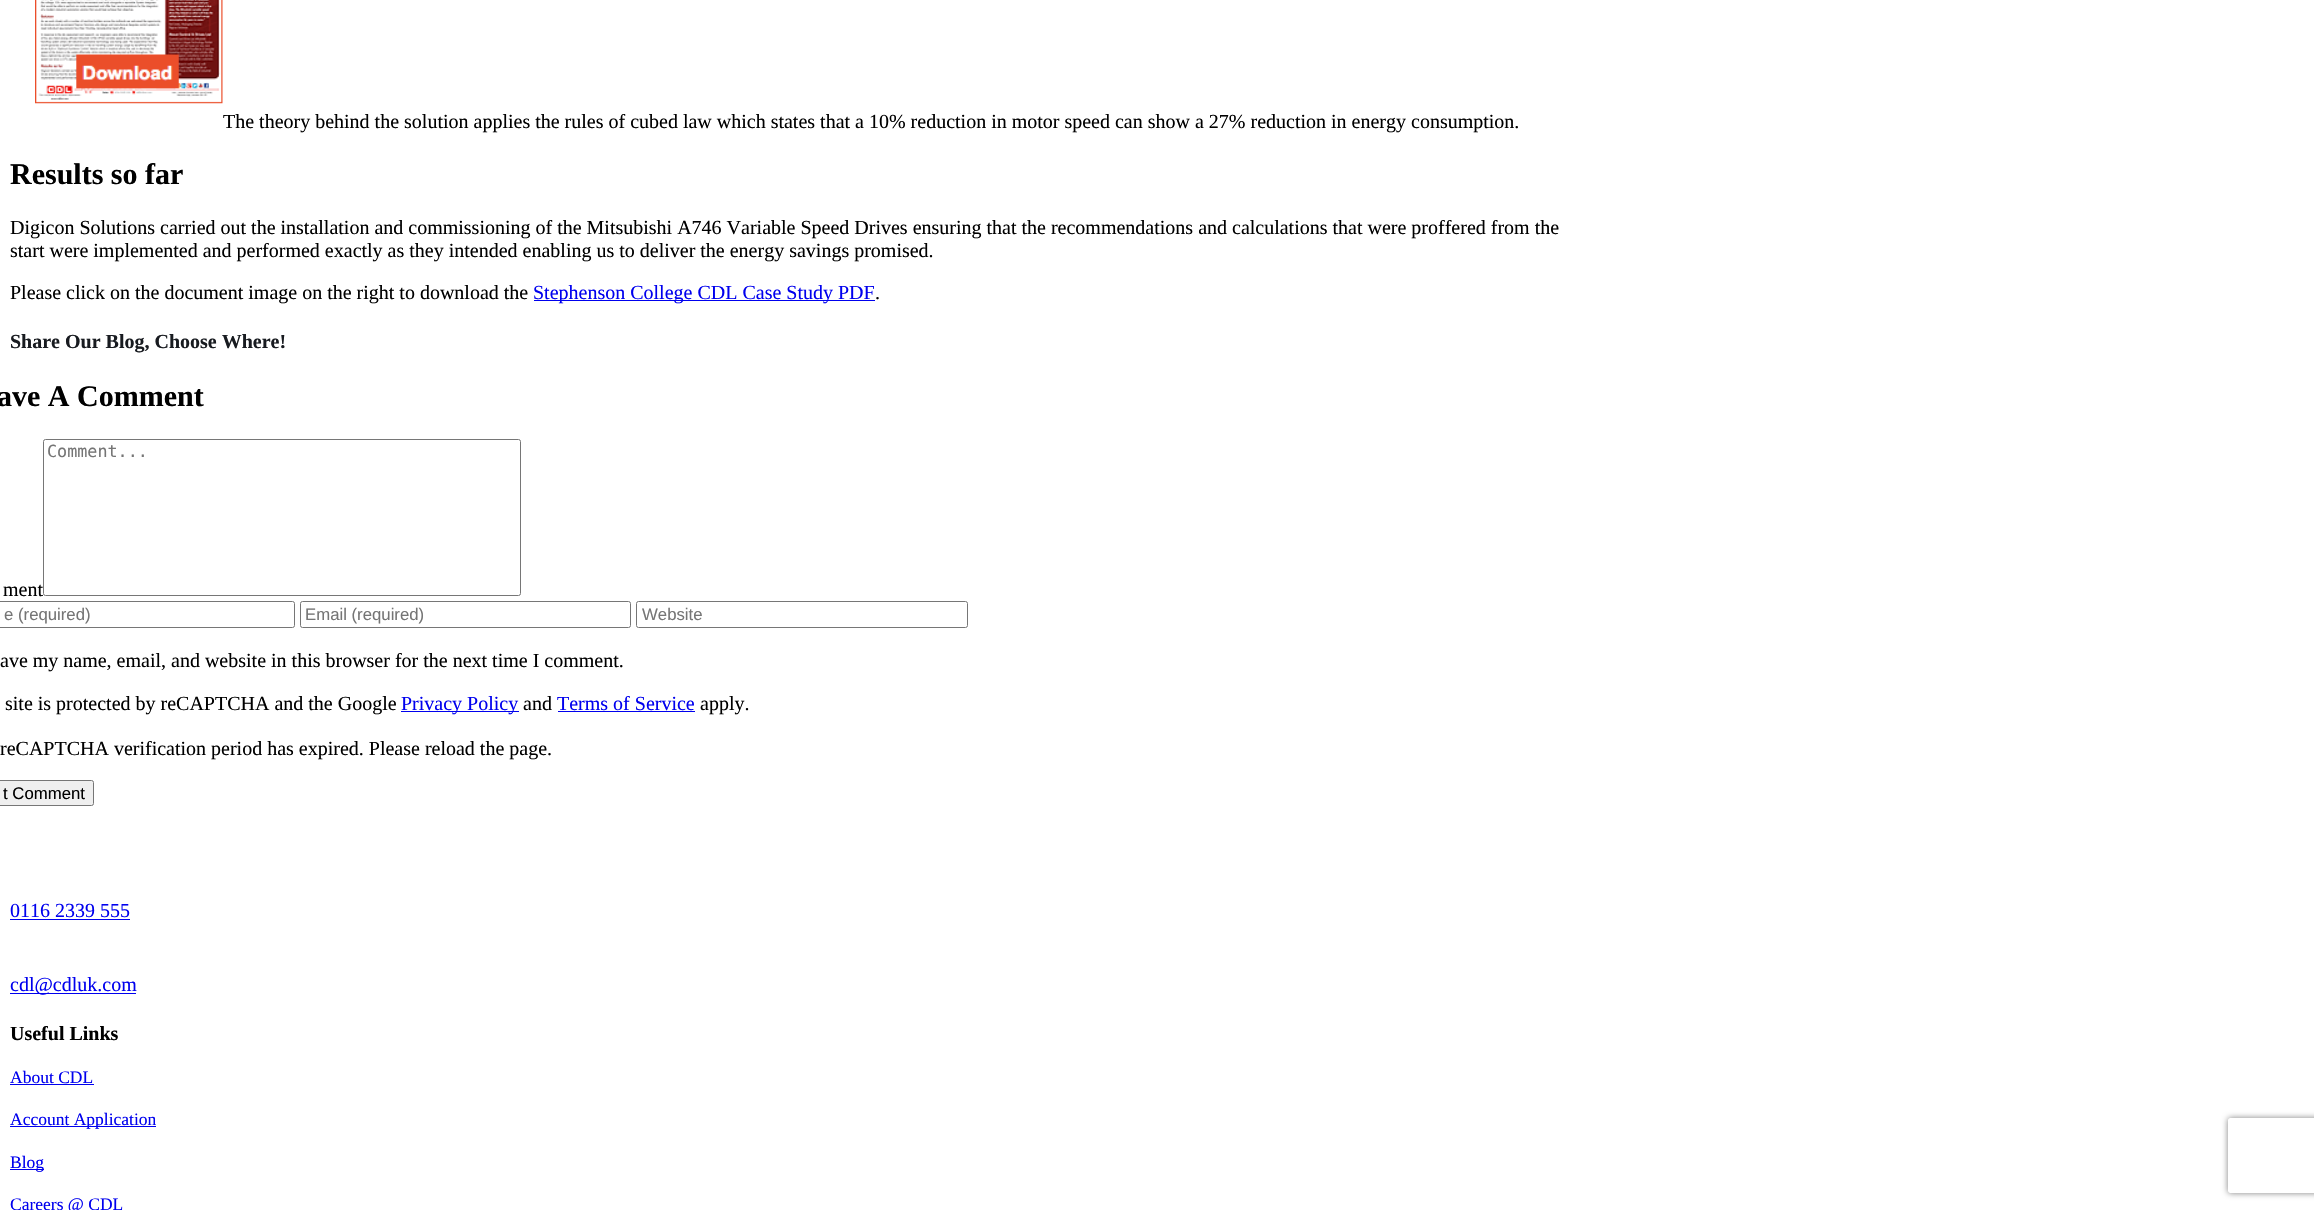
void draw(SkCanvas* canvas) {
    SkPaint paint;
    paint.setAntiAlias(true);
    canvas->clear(0xFFFFFFFF);
    canvas->drawImageRect(SkImages::DeferredFromEncodedData(SkData::MakeFromFileName("img1.png")), SkRect::MakeXYWH(35, 0, 188, 104), SkSamplingOptions());
    SkFont font1(fontMgr->matchFamilyStyle("Liberation Serif", SkFontStyle::Normal()), 20);
    font1.setSubpixel(true);
    paint.setColor(0xFF000000);
    canvas->drawString("The theory behind the solution applies the rules of cubed law which states that a 10% reduction in motor speed can show a 27% reduction in energy consumption.", 223, 128, font1, paint);
    SkFont font2(fontMgr->matchFamilyStyle("Liberation Serif", SkFontStyle::Bold()), 30);
    font2.setSubpixel(true);
    canvas->drawString("Results so far", 10, 184, font2, paint);
    canvas->drawString("Digicon Solutions carried out the installation and commissioning of the Mitsubishi A746 Variable Speed Drives ensuring that the recommendations and calculations that were proffered from the", 10, 234, font1, paint);
    canvas->drawString("start were implemented and performed exactly as they intended enabling us to deliver the energy savings promised.", 10, 257, font1, paint);
    canvas->drawString("Please click on the document image on the right to download the", 10, 299, font1, paint);
    paint.setColor(0xFF0000EE);
    canvas->drawRect(SkRect::MakeXYWH(534, 300, 341, 1), paint);
    canvas->drawString("Stephenson College CDL Case Study PDF", 533, 299, font1, paint);
    paint.setColor(0xFF000000);
    canvas->drawString(".", 875, 299, font1, paint);
    SkFont font3(fontMgr->matchFamilyStyle("Liberation Serif", SkFontStyle::Bold()), 20);
    font3.setSubpixel(true);
    paint.setColor(0xFF181B20);
    canvas->drawString("Share Our Blog, Choose Where!", 10, 348, font3, paint);
    paint.setColor(0xFF000000);
    canvas->drawString("ave A Comment", -3, 406, font2, paint);
    paint.setStyle(SkPaint::kStroke_Style);
    paint.setStrokeWidth(1);
    paint.setColor(0xFF767676);
    canvas->drawRoundRect(SkRect::MakeXYWH(43.5f, 439.5f, 477, 156), 2, 2, paint);
    SkFont font4(fontMgr->matchFamilyStyle("DejaVu Sans Mono", SkFontStyle::Normal()), 16.75f);
    font4.setSubpixel(true);
    paint.setStyle(SkPaint::kFill_Style);
    paint.setColor(0xFF757575);
    canvas->drawString("Comment...", 47, 457, font4, paint);
    paint.setColor(0xFF000000);
    canvas->drawString("ment", 3, 596, font1, paint);
    paint.setStyle(SkPaint::kStroke_Style);
    paint.setColor(0xFF767676);
    canvas->drawRoundRect(SkRect::MakeXYWH(-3.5f, 601.5f, 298, 26), 2, 2, paint);
    SkFont font5(fontMgr->matchFamilyStyle("Liberation Sans", SkFontStyle::Normal()), 16.75f);
    font5.setSubpixel(true);
    paint.setStyle(SkPaint::kFill_Style);
    paint.setColor(0xFF757575);
    canvas->drawString("e (required)", 4, 620, font5, paint);
    paint.setStyle(SkPaint::kStroke_Style);
    paint.setColor(0xFF767676);
    canvas->drawRoundRect(SkRect::MakeXYWH(300.5f, 601.5f, 330, 26), 2, 2, paint);
    paint.setStyle(SkPaint::kFill_Style);
    paint.setColor(0xFF757575);
    canvas->drawString("Email (required)", 305, 620, font5, paint);
    paint.setStyle(SkPaint::kStroke_Style);
    paint.setColor(0xFF767676);
    canvas->drawRoundRect(SkRect::MakeXYWH(636.5f, 601.5f, 331, 26), 2, 2, paint);
    paint.setStyle(SkPaint::kFill_Style);
    paint.setColor(0xFF757575);
    canvas->drawString("Website", 642, 620, font5, paint);
    paint.setColor(0xFF000000);
    canvas->drawString("ave my name, email, and website in this browser for the next time I comment.", 0, 667, font1, paint);
    canvas->drawString("site is protected by reCAPTCHA and the Google", 5, 710, font1, paint);
    paint.setColor(0xFF0000EE);
    canvas->drawRect(SkRect::MakeXYWH(401, 711, 118, 1), paint);
    canvas->drawString("Privacy Policy", 401, 710, font1, paint);
    paint.setColor(0xFF000000);
    canvas->drawString("and", 523, 710, font1, paint);
    paint.setColor(0xFF0000EE);
    canvas->drawString("Terms of Service", 557, 710, font1, paint);
    canvas->drawRect(SkRect::MakeXYWH(558, 711, 137, 1), paint);
    paint.setColor(0xFF000000);
    canvas->drawString("apply.", 700, 710, font1, paint);
    canvas->drawString("reCAPTCHA verification period has expired. Please reload the page.", 0, 755, font1, paint);
    paint.setColor(0xFFEFEFEF);
    canvas->drawRoundRect(SkRect::MakeXYWH(-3.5f, 780.5f, 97, 25), 2, 2, paint);
    paint.setStyle(SkPaint::kStroke_Style);
    paint.setColor(0xFF767676);
    canvas->drawRoundRect(SkRect::MakeXYWH(-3.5f, 780.5f, 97, 25), 2, 2, paint);
    paint.setStyle(SkPaint::kFill_Style);
    paint.setColor(0xFF000000);
    canvas->drawString("t Comment", 3, 799, font5, paint);
    paint.setColor(0xFF0000EE);
    canvas->drawString("0116 2339 555", 10, 917, font1, paint);
    canvas->drawRect(SkRect::MakeXYWH(10, 919, 120, 1), paint);
    canvas->drawRect(SkRect::MakeXYWH(10, 993, 126, 1), paint);
    canvas->drawString("cdl@cdluk.com", 10, 991, font1, paint);
    paint.setColor(0xFF000000);
    canvas->drawString("Useful Links", 10, 1040, font3, paint);
    SkFont font6(fontMgr->matchFamilyStyle("Liberation Serif", SkFontStyle::Normal()), 17.5f);
    font6.setSubpixel(true);
    paint.setColor(0xFF0000EE);
    canvas->drawString("About CDL", 10, 1083, font6, paint);
    canvas->drawRect(SkRect::MakeXYWH(10, 1084, 84, 1), paint);
    canvas->drawRect(SkRect::MakeXYWH(10, 1126, 146, 1), paint);
    canvas->drawString("Account Application", 10, 1125, font6, paint);
    canvas->drawRect(SkRect::MakeXYWH(10, 1169, 34, 1), paint);
    canvas->drawString("Blog", 10, 1168, font6, paint);
    canvas->drawString("Careers @ CDL", 10, 1210, font6, paint);
    canvas->save();
    canvas->clipPath(SkPathBuilder(SkPathFillType::kEvenOdd).moveTo(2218, 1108).lineTo(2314, 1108).lineTo(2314, 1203).lineTo(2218, 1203).close().moveTo(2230.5f, 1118).lineTo(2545.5f, 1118).cubicTo(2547, 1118, 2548, 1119, 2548, 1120.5f).lineTo(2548, 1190.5f).cubicTo(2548, 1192, 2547, 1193, 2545.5f, 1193).lineTo(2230.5f, 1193).cubicTo(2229, 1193, 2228, 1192, 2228, 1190.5f).lineTo(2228, 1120.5f).cubicTo(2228, 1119, 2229, 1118, 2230.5f, 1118).close().detach(), true);
    paint.setColor(0xFF808080);
    paint.setMaskFilter(SkMaskFilter::MakeBlur(kNormal_SkBlurStyle, 3));
    canvas->drawRoundRect(SkRect::MakeXYWH(2228, 1118, 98, 75), 2.5f, 2.5f, paint);
    paint.setMaskFilter(nullptr);
    canvas->restore();
}
